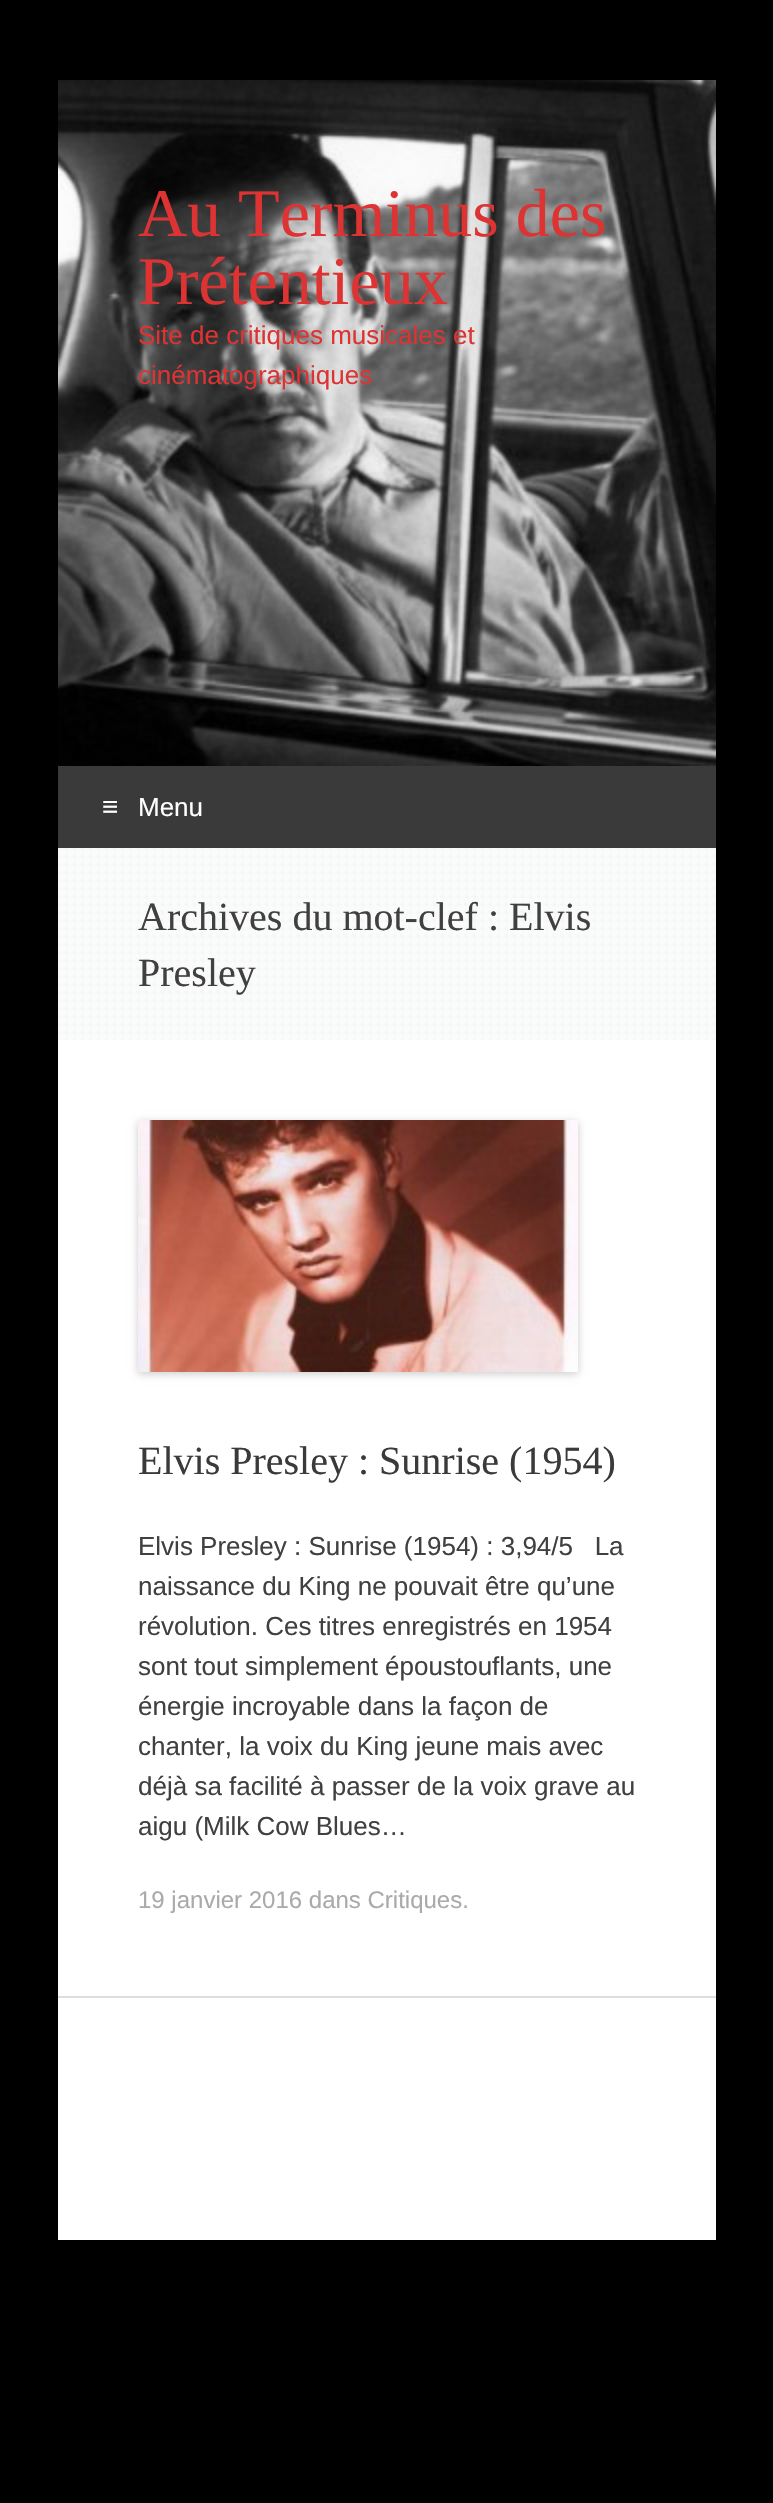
void draw(SkCanvas* canvas) {
    SkPaint paint;
    paint.setAntiAlias(true);
    canvas->clear(0xFF000000);
    paint.setColor(0xFFFFFFFF);
    canvas->drawRect(SkRect::MakeXYWH(58, 848, 658, 1392), paint);
    canvas->drawImageRect(SkImages::DeferredFromEncodedData(SkData::MakeFromFileName("img1.png")), SkRect::MakeXYWH(58, 80, 658, 686), SkSamplingOptions());
    SkFont font1(fontMgr->matchFamilyStyle("Liberation Serif", SkFontStyle::Normal()), 68);
    font1.setSubpixel(true);
    paint.setColor(0xFFDD3333);
    canvas->drawString("Au Terminus des", 138, 236, font1, paint);
    canvas->drawString("Prétentieux", 138, 304, font1, paint);
    SkFont font2(fontMgr->matchFamilyStyle("Liberation Sans", SkFontStyle::Normal()), 26);
    font2.setSubpixel(true);
    canvas->drawString("Site de critiques musicales et", 138, 344, font2, paint);
    canvas->drawString("cinématographiques", 138, 384, font2, paint);
    paint.setColor(0xFF3A3A3A);
    canvas->drawRect(SkRect::MakeXYWH(58, 766, 658, 82), paint);
    SkFont font3(fontMgr->matchFamilyStyle("Liberation Sans", SkFontStyle::Normal()), 28);
    font3.setSubpixel(true);
    paint.setColor(0xFFFFFFFF);
    canvas->drawString("≡", 102, 816, font3, paint);
    canvas->drawString("Menu", 138, 816, font2, paint);
    canvas->drawImageRect(SkImages::DeferredFromEncodedData(SkData::MakeFromFileName("img2.png")), SkRect::MakeXYWH(58, 848, 658, 192), SkSamplingOptions());
    SkFont font4(fontMgr->matchFamilyStyle("Liberation Serif", SkFontStyle::Normal()), 40);
    font4.setSubpixel(true);
    paint.setColor(0xFF404040);
    canvas->drawString("Archives du mot-clef : Elvis", 138, 930, font4, paint);
    canvas->drawString("Presley", 138, 986, font4, paint);
    paint.setColor(0xFFDDDDDD);
    canvas->drawRect(SkRect::MakeXYWH(58, 1996, 658, 2), paint);
    paint.setColor(0x33000000);
    paint.setMaskFilter(SkMaskFilter::MakeBlur(kNormal_SkBlurStyle, 4));
    canvas->drawRect(SkRect::MakeXYWH(138, 1122, 440, 252), paint);
    paint.setMaskFilter(nullptr);
    canvas->drawImageRect(SkImages::DeferredFromEncodedData(SkData::MakeFromFileName("img3.png")), SkRect::MakeXYWH(138, 1120, 440, 252), SkSamplingOptions());
    paint.setColor(0xFF3A3A3A);
    canvas->drawString("Elvis Presley : Sunrise (1954)", 138, 1474, font4, paint);
    paint.setColor(0xFF404040);
    canvas->drawString("Elvis Presley : Sunrise (1954) : 3,94/5   La", 138, 1555, font2, paint);
    canvas->drawString("naissance du King ne pouvait être qu’une", 138, 1595, font2, paint);
    canvas->drawString("révolution. Ces titres enregistrés en 1954", 138, 1635, font2, paint);
    canvas->drawString("sont tout simplement époustouflants, une", 138, 1675, font2, paint);
    canvas->drawString("énergie incroyable dans la façon de", 138, 1715, font2, paint);
    canvas->drawString("chanter, la voix du King jeune mais avec", 138, 1755, font2, paint);
    canvas->drawString("déjà sa facilité à passer de la voix grave au", 138, 1795, font2, paint);
    canvas->drawString("aigu (Milk Cow Blues…", 138, 1835, font2, paint);
    SkFont font5(fontMgr->matchFamilyStyle("Liberation Sans", SkFontStyle::Normal()), 24);
    font5.setSubpixel(true);
    paint.setColor(0xFFAAAAAA);
    canvas->drawString("19 janvier 2016 dans Critiques.", 138, 1908, font5, paint);
}
